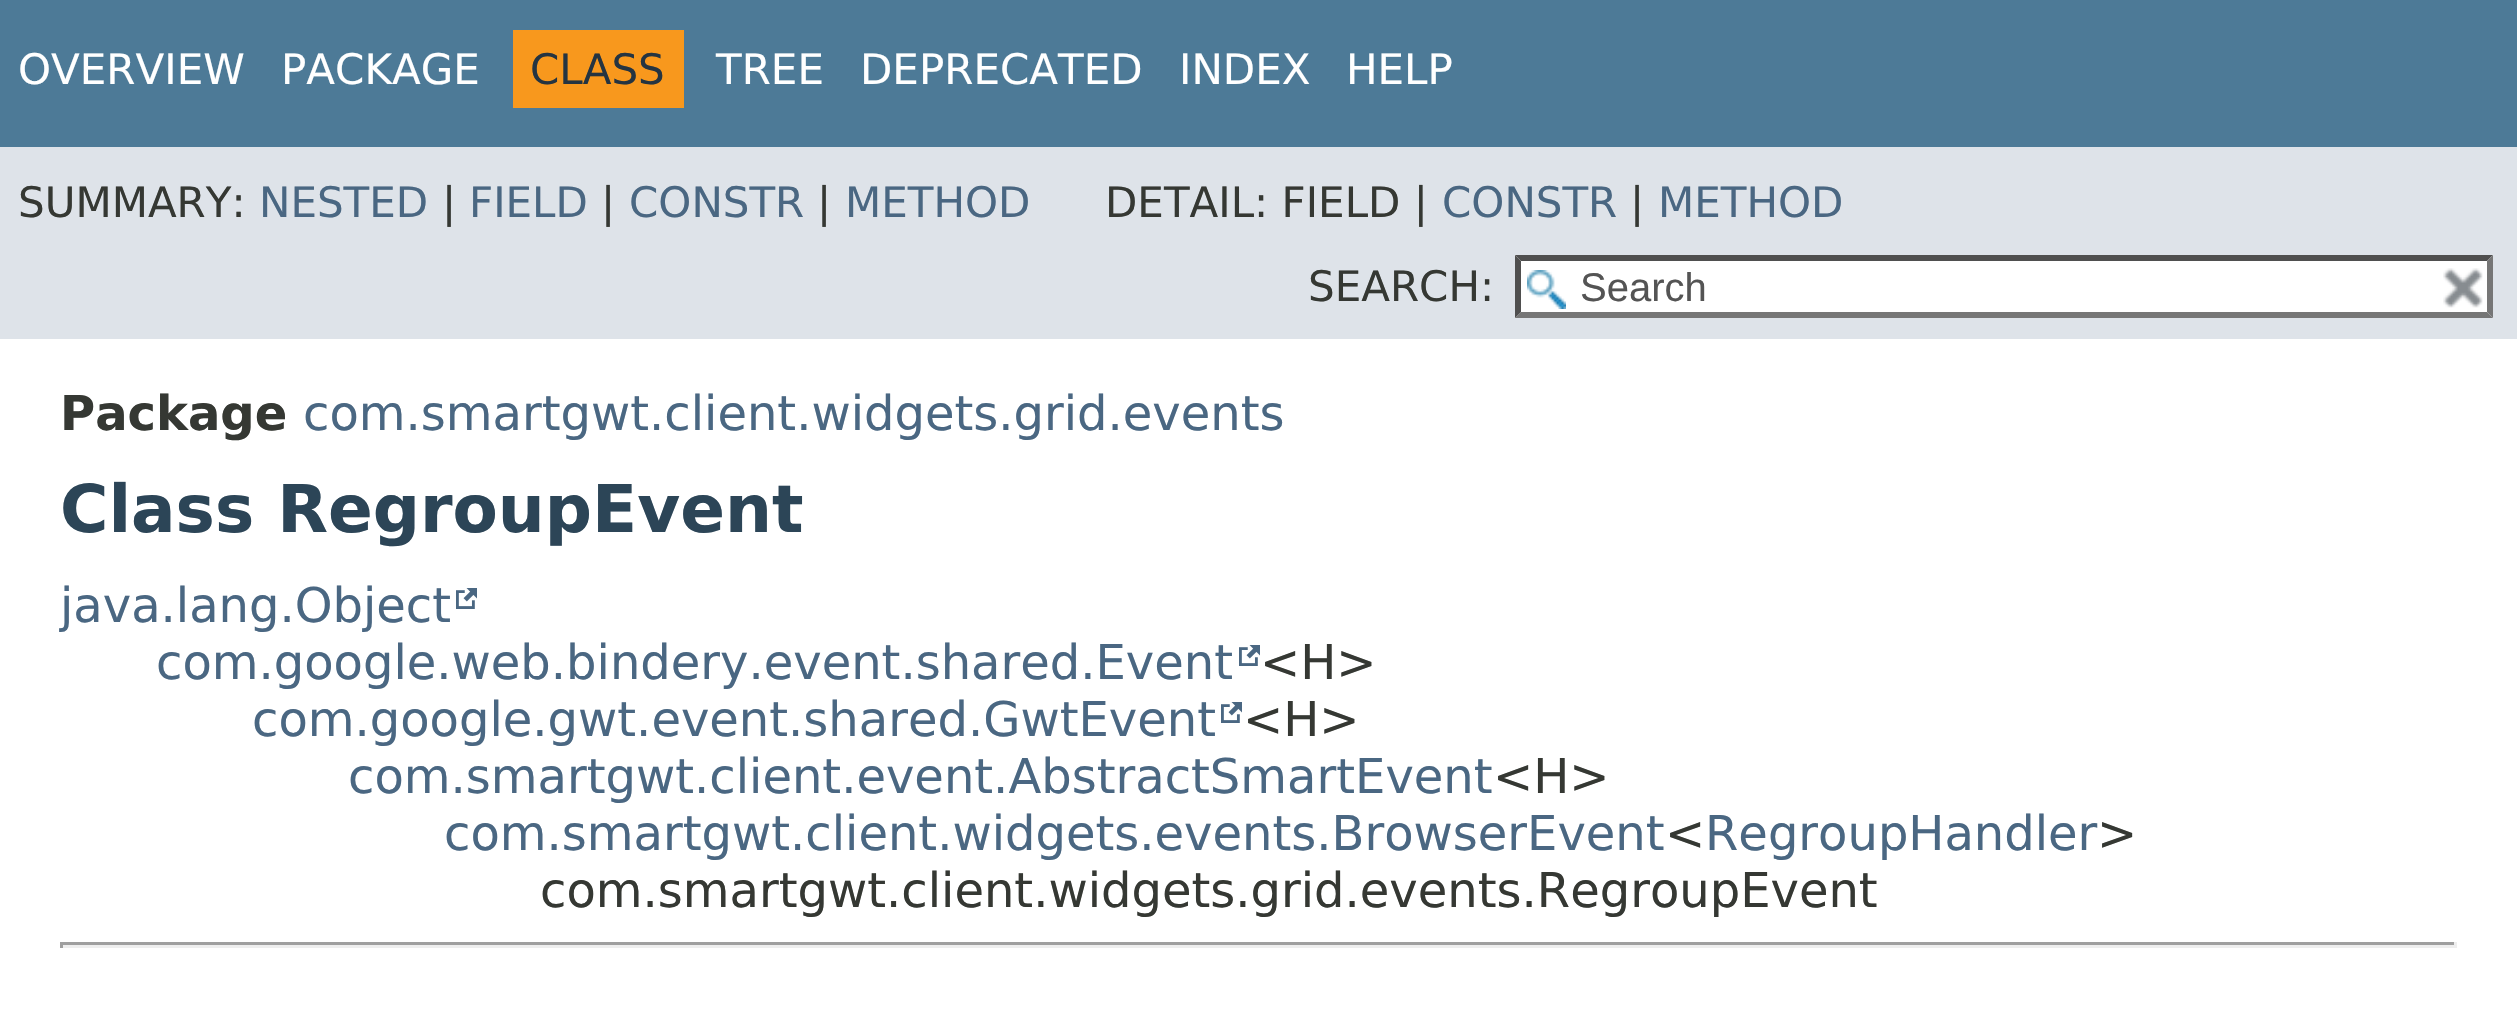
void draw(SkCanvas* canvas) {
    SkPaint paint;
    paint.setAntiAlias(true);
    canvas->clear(0xFFFFFFFF);
    paint.setColor(0xFF4D7A97);
    canvas->drawRect(SkRect::MakeXYWH(0, 0, 2517, 147), paint);
    SkFont font1(fontMgr->matchFamilyStyle("DejaVu Sans", SkFontStyle::Normal()), 42);
    font1.setSubpixel(true);
    paint.setColor(0xFFFFFFFF);
    canvas->drawString("OVERVIEW", 18, 84, font1, paint);
    canvas->drawString("PACKAGE", 281, 84, font1, paint);
    paint.setColor(0xFFF8981D);
    canvas->drawRect(SkRect::MakeXYWH(513, 30, 171, 78), paint);
    paint.setColor(0xFF253441);
    canvas->drawString("CLASS", 530, 84, font1, paint);
    paint.setColor(0xFFFFFFFF);
    canvas->drawString("TREE", 716, 84, font1, paint);
    canvas->drawString("DEPRECATED", 860, 84, font1, paint);
    canvas->drawString("INDEX", 1179, 84, font1, paint);
    canvas->drawString("HELP", 1346, 84, font1, paint);
    paint.setColor(0xFFDEE3E9);
    canvas->drawRect(SkRect::MakeXYWH(0, 147, 2517, 192), paint);
    paint.setColor(0xFF353833);
    canvas->drawString("SUMMARY:", 18, 217, font1, paint);
    paint.setColor(0xFF4A6782);
    canvas->drawString("NESTED", 259, 217, font1, paint);
    paint.setColor(0xFF353833);
    canvas->drawString("|", 442, 217, font1, paint);
    paint.setColor(0xFF4A6782);
    canvas->drawString("FIELD", 469, 217, font1, paint);
    paint.setColor(0xFF353833);
    canvas->drawString("|", 601, 217, font1, paint);
    paint.setColor(0xFF4A6782);
    canvas->drawString("CONSTR", 629, 217, font1, paint);
    paint.setColor(0xFF353833);
    canvas->drawString("|", 817, 217, font1, paint);
    paint.setColor(0xFF4A6782);
    canvas->drawString("METHOD", 845, 217, font1, paint);
    paint.setColor(0xFF353833);
    canvas->drawString("DETAIL: FIELD |", 1105, 217, font1, paint);
    paint.setColor(0xFF4A6782);
    canvas->drawString("CONSTR", 1442, 217, font1, paint);
    paint.setColor(0xFF353833);
    canvas->drawString("|", 1630, 217, font1, paint);
    paint.setColor(0xFF4A6782);
    canvas->drawString("METHOD", 1658, 217, font1, paint);
    paint.setColor(0xFF353833);
    canvas->drawString("SEARCH:", 1308, 301, font1, paint);
    paint.setColor(0xFFFFFFFF);
    canvas->drawRect(SkRect::MakeXYWH(1515, 255, 978, 63), paint);
    canvas->drawImageRect(SkImages::DeferredFromEncodedData(SkData::MakeFromFileName("img1.png")), SkRect::MakeXYWH(1527, 270, 39, 39), SkSamplingOptions());
    paint.setColor(0xFF4F4F4F);
    canvas->drawPath(SkPathBuilder().moveTo(1515, 255).lineTo(2493, 255).lineTo(2487, 261).lineTo(1521, 261).close().detach(), paint);
    paint.setColor(0xFF767676);
    canvas->drawPath(SkPathBuilder().moveTo(2493, 255).lineTo(2493, 318).lineTo(2487, 312).lineTo(2487, 261).close().detach(), paint);
    canvas->drawPath(SkPathBuilder().moveTo(2493, 318).lineTo(1515, 318).lineTo(1521, 312).lineTo(2487, 312).close().detach(), paint);
    paint.setColor(0xFF4F4F4F);
    canvas->drawPath(SkPathBuilder().moveTo(1515, 318).lineTo(1515, 255).lineTo(1521, 261).lineTo(1521, 312).close().detach(), paint);
    SkFont font2(fontMgr->matchFamilyStyle("Liberation Sans", SkFontStyle::Normal()), 40);
    font2.setSubpixel(true);
    paint.setColor(0xFF545454);
    canvas->drawString("Search", 1580, 301, font2, paint);
    canvas->drawImageRect(SkImages::DeferredFromEncodedData(SkData::MakeFromFileName("img2.png")), SkRect::MakeXYWH(2443, 268, 40, 40), SkSamplingOptions());
    SkFont font3(fontMgr->matchFamilyStyle("DejaVu Sans", SkFontStyle::Bold()), 48);
    font3.setSubpixel(true);
    paint.setColor(0xFF353833);
    canvas->drawString("Package", 60, 430, font3, paint);
    SkFont font4(fontMgr->matchFamilyStyle("DejaVu Sans", SkFontStyle::Normal()), 48);
    font4.setSubpixel(true);
    paint.setColor(0xFF4A6782);
    canvas->drawString("com.smartgwt.client.widgets.grid.events", 303, 430, font4, paint);
    SkFont font5(fontMgr->matchFamilyStyle("DejaVu Sans", SkFontStyle::Bold()), 66);
    font5.setSubpixel(true);
    paint.setColor(0xFF2C4557);
    canvas->drawString("Class RegroupEvent", 60, 532, font5, paint);
    paint.setColor(0xFF4A6782);
    canvas->drawString("java.lang.Object", 60, 622, font4, paint);
    canvas->drawImageRect(SkImages::DeferredFromEncodedData(SkData::MakeFromFileName("img3.png")), SkRect::MakeXYWH(456, 588, 21, 21), SkSamplingOptions());
    canvas->drawString("com.google.web.bindery.event.shared.Event", 156, 679, font4, paint);
    canvas->drawImageRect(SkImages::DeferredFromEncodedData(SkData::MakeFromFileName("img3.png")), SkRect::MakeXYWH(1239, 645, 21, 21), SkSamplingOptions());
    paint.setColor(0xFF353833);
    canvas->drawString("<H>", 1260, 679, font4, paint);
    paint.setColor(0xFF4A6782);
    canvas->drawString("com.google.gwt.event.shared.GwtEvent", 252, 736, font4, paint);
    canvas->drawImageRect(SkImages::DeferredFromEncodedData(SkData::MakeFromFileName("img3.png")), SkRect::MakeXYWH(1221, 702, 21, 21), SkSamplingOptions());
    paint.setColor(0xFF353833);
    canvas->drawString("<H>", 1243, 736, font4, paint);
    paint.setColor(0xFF4A6782);
    canvas->drawString("com.smartgwt.client.event.AbstractSmartEvent", 348, 793, font4, paint);
    paint.setColor(0xFF353833);
    canvas->drawString("<H>", 1493, 793, font4, paint);
    paint.setColor(0xFF4A6782);
    canvas->drawString("com.smartgwt.client.widgets.events.BrowserEvent", 444, 850, font4, paint);
    paint.setColor(0xFF353833);
    canvas->drawString("<", 1665, 850, font4, paint);
    paint.setColor(0xFF4A6782);
    canvas->drawString("RegroupHandler", 1705, 850, font4, paint);
    paint.setColor(0xFF353833);
    canvas->drawString(">", 2097, 850, font4, paint);
    canvas->drawString("com.smartgwt.client.widgets.grid.events.RegroupEvent", 540, 907, font4, paint);
    paint.setColor(0xFF9F9F9F);
    canvas->drawRect(SkRect::MakeXYWH(60, 942, 2397, 3), paint);
    paint.setColor(0xFFEEEEEE);
    canvas->drawRect(SkRect::MakeXYWH(2454, 942, 3, 6), paint);
    canvas->drawRect(SkRect::MakeXYWH(60, 945, 2397, 3), paint);
    paint.setColor(0xFF9F9F9F);
    canvas->drawRect(SkRect::MakeXYWH(60, 942, 3, 6), paint);
}
